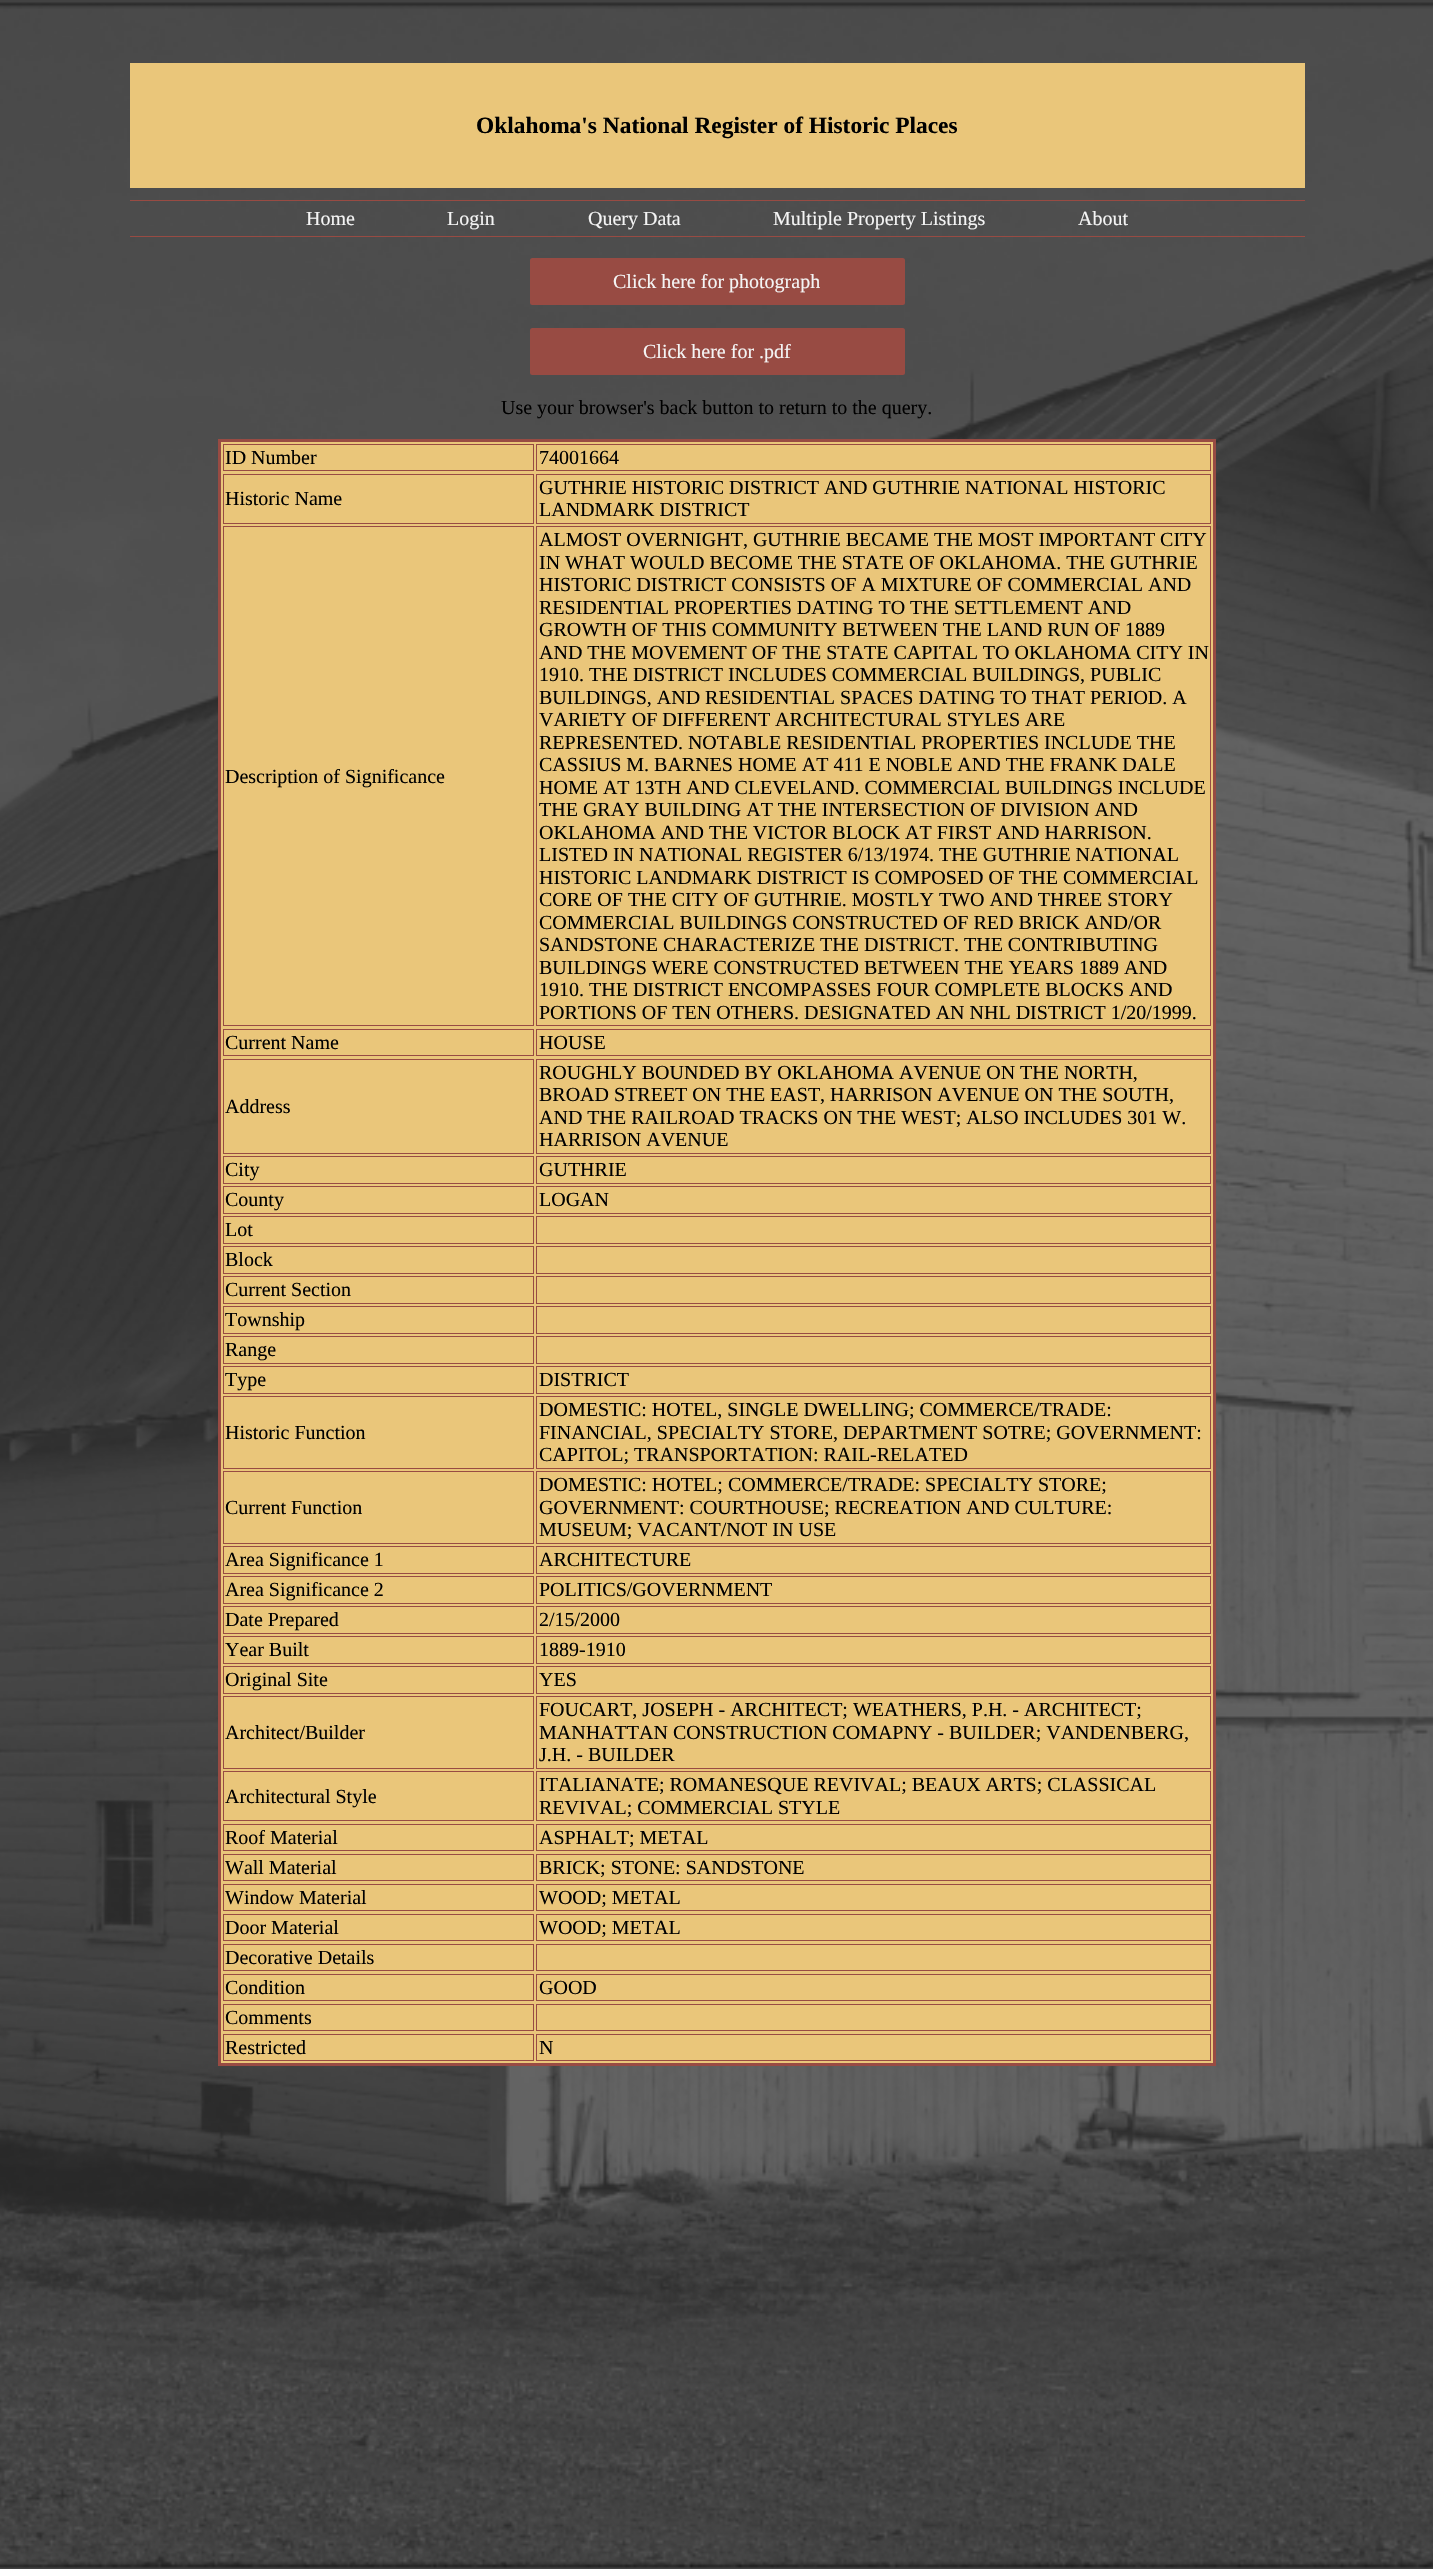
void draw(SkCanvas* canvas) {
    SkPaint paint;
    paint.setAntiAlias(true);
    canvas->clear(0xFFFFFFFF);
    canvas->drawImageRect(SkImages::DeferredFromEncodedData(SkData::MakeFromFileName("img1.png")), SkRect::MakeXYWH(0, 0, 1433, 2569), SkSamplingOptions());
    paint.setColor(0xFFEAC67A);
    canvas->drawRect(SkRect::MakeXYWH(130, 63, 1175, 125), paint);
    SkFont font1(fontMgr->matchFamilyStyle("Liberation Serif", SkFontStyle::Bold()), 23.4f);
    font1.setSubpixel(true);
    paint.setColor(0xFF000000);
    canvas->drawString("Oklahoma's National Register of Historic Places", 476, 133, font1, paint);
    paint.setColor(0xFF984B43);
    canvas->drawRect(SkRect::MakeXYWH(130, 200, 1175, 1), paint);
    canvas->drawRect(SkRect::MakeXYWH(130, 236, 1175, 1), paint);
    SkFont font2(fontMgr->matchFamilyStyle("Liberation Serif", SkFontStyle::Normal()), 20);
    font2.setSubpixel(true);
    paint.setColor(0xFFF4F4F4);
    canvas->drawString("Home", 306, 225, font2, paint);
    canvas->drawString("Login", 447, 225, font2, paint);
    canvas->drawString("Query Data", 588, 225, font2, paint);
    canvas->drawString("Multiple Property Listings", 773, 225, font2, paint);
    canvas->drawString("About", 1078, 225, font2, paint);
    paint.setColor(0xFF984B43);
    canvas->drawRoundRect(SkRect::MakeXYWH(530, 258, 375, 47), 2.5f, 2.5f, paint);
    paint.setColor(0xFFF4F4F4);
    canvas->drawString("Click here for photograph", 613, 288, font2, paint);
    paint.setColor(0xFF984B43);
    canvas->drawRoundRect(SkRect::MakeXYWH(530, 328, 375, 47), 2.5f, 2.5f, paint);
    paint.setColor(0xFFF4F4F4);
    canvas->drawString("Click here for .pdf", 643, 358, font2, paint);
    paint.setColor(0xFF000000);
    canvas->drawString("Use your browser's back button to return to the query.", 501, 414, font2, paint);
    paint.setColor(0xFFEAC67A);
    canvas->drawRect(SkRect::MakeXYWH(219.5f, 440.5f, 995, 1624), paint);
    paint.setStyle(SkPaint::kStroke_Style);
    paint.setStrokeWidth(3);
    paint.setColor(0xFF984B43);
    canvas->drawRect(SkRect::MakeXYWH(219.5f, 440.5f, 995, 1624), paint);
    paint.setStrokeWidth(1);
    canvas->drawRect(SkRect::MakeXYWH(223.5f, 444.5f, 310, 26), paint);
    paint.setStyle(SkPaint::kFill_Style);
    paint.setColor(0xFF000000);
    canvas->drawString("ID Number", 225, 464, font2, paint);
    paint.setStyle(SkPaint::kStroke_Style);
    paint.setColor(0xFF984B43);
    canvas->drawRect(SkRect::MakeXYWH(536.5f, 444.5f, 674, 26), paint);
    paint.setStyle(SkPaint::kFill_Style);
    paint.setColor(0xFF000000);
    canvas->drawString("74001664", 539, 464, font2, paint);
    paint.setStyle(SkPaint::kStroke_Style);
    paint.setColor(0xFF984B43);
    canvas->drawRect(SkRect::MakeXYWH(223.5f, 474.5f, 310, 49), paint);
    paint.setStyle(SkPaint::kFill_Style);
    paint.setColor(0xFF000000);
    canvas->drawString("Historic Name", 225, 505, font2, paint);
    paint.setStyle(SkPaint::kStroke_Style);
    paint.setColor(0xFF984B43);
    canvas->drawRect(SkRect::MakeXYWH(536.5f, 474.5f, 674, 49), paint);
    paint.setStyle(SkPaint::kFill_Style);
    paint.setColor(0xFF000000);
    canvas->drawString("GUTHRIE HISTORIC DISTRICT AND GUTHRIE NATIONAL HISTORIC", 539, 494, font2, paint);
    canvas->drawString("LANDMARK DISTRICT", 539, 516, font2, paint);
    paint.setStyle(SkPaint::kStroke_Style);
    paint.setColor(0xFF984B43);
    canvas->drawRect(SkRect::MakeXYWH(223.5f, 526.5f, 310, 499), paint);
    paint.setStyle(SkPaint::kFill_Style);
    paint.setColor(0xFF000000);
    canvas->drawString("Description of Significance", 225, 783, font2, paint);
    paint.setStyle(SkPaint::kStroke_Style);
    paint.setColor(0xFF984B43);
    canvas->drawRect(SkRect::MakeXYWH(536.5f, 526.5f, 674, 499), paint);
    paint.setStyle(SkPaint::kFill_Style);
    paint.setColor(0xFF000000);
    canvas->drawString("ALMOST OVERNIGHT, GUTHRIE BECAME THE MOST IMPORTANT CITY", 539, 546, font2, paint);
    canvas->drawString("IN WHAT WOULD BECOME THE STATE OF OKLAHOMA. THE GUTHRIE", 539, 569, font2, paint);
    canvas->drawString("HISTORIC DISTRICT CONSISTS OF A MIXTURE OF COMMERCIAL AND", 539, 591, font2, paint);
    canvas->drawString("RESIDENTIAL PROPERTIES DATING TO THE SETTLEMENT AND", 539, 614, font2, paint);
    canvas->drawString("GROWTH OF THIS COMMUNITY BETWEEN THE LAND RUN OF 1889", 539, 636, font2, paint);
    canvas->drawString("AND THE MOVEMENT OF THE STATE CAPITAL TO OKLAHOMA CITY IN", 539, 659, font2, paint);
    canvas->drawString("1910. THE DISTRICT INCLUDES COMMERCIAL BUILDINGS, PUBLIC", 539, 681, font2, paint);
    canvas->drawString("BUILDINGS, AND RESIDENTIAL SPACES DATING TO THAT PERIOD. A", 539, 704, font2, paint);
    canvas->drawString("VARIETY OF DIFFERENT ARCHITECTURAL STYLES ARE", 539, 726, font2, paint);
    canvas->drawString("REPRESENTED. NOTABLE RESIDENTIAL PROPERTIES INCLUDE THE", 539, 749, font2, paint);
    canvas->drawString("CASSIUS M. BARNES HOME AT 411 E NOBLE AND THE FRANK DALE", 539, 771, font2, paint);
    canvas->drawString("HOME AT 13TH AND CLEVELAND. COMMERCIAL BUILDINGS INCLUDE", 539, 794, font2, paint);
    canvas->drawString("THE GRAY BUILDING AT THE INTERSECTION OF DIVISION AND", 539, 816, font2, paint);
    canvas->drawString("OKLAHOMA AND THE VICTOR BLOCK AT FIRST AND HARRISON.", 539, 839, font2, paint);
    canvas->drawString("LISTED IN NATIONAL REGISTER 6/13/1974. THE GUTHRIE NATIONAL", 539, 861, font2, paint);
    canvas->drawString("HISTORIC LANDMARK DISTRICT IS COMPOSED OF THE COMMERCIAL", 539, 884, font2, paint);
    canvas->drawString("CORE OF THE CITY OF GUTHRIE. MOSTLY TWO AND THREE STORY", 539, 906, font2, paint);
    canvas->drawString("COMMERCIAL BUILDINGS CONSTRUCTED OF RED BRICK AND/OR", 539, 929, font2, paint);
    canvas->drawString("SANDSTONE CHARACTERIZE THE DISTRICT. THE CONTRIBUTING", 539, 951, font2, paint);
    canvas->drawString("BUILDINGS WERE CONSTRUCTED BETWEEN THE YEARS 1889 AND", 539, 974, font2, paint);
    canvas->drawString("1910. THE DISTRICT ENCOMPASSES FOUR COMPLETE BLOCKS AND", 539, 996, font2, paint);
    canvas->drawString("PORTIONS OF TEN OTHERS. DESIGNATED AN NHL DISTRICT 1/20/1999.", 539, 1019, font2, paint);
    paint.setStyle(SkPaint::kStroke_Style);
    paint.setColor(0xFF984B43);
    canvas->drawRect(SkRect::MakeXYWH(223.5f, 1029.5f, 310, 26), paint);
    paint.setStyle(SkPaint::kFill_Style);
    paint.setColor(0xFF000000);
    canvas->drawString("Current Name", 225, 1049, font2, paint);
    paint.setStyle(SkPaint::kStroke_Style);
    paint.setColor(0xFF984B43);
    canvas->drawRect(SkRect::MakeXYWH(536.5f, 1029.5f, 674, 26), paint);
    paint.setStyle(SkPaint::kFill_Style);
    paint.setColor(0xFF000000);
    canvas->drawString("HOUSE", 539, 1049, font2, paint);
    paint.setStyle(SkPaint::kStroke_Style);
    paint.setColor(0xFF984B43);
    canvas->drawRect(SkRect::MakeXYWH(223.5f, 1059.5f, 310, 94), paint);
    paint.setStyle(SkPaint::kFill_Style);
    paint.setColor(0xFF000000);
    canvas->drawString("Address", 225, 1113, font2, paint);
    paint.setStyle(SkPaint::kStroke_Style);
    paint.setColor(0xFF984B43);
    canvas->drawRect(SkRect::MakeXYWH(536.5f, 1059.5f, 674, 94), paint);
    paint.setStyle(SkPaint::kFill_Style);
    paint.setColor(0xFF000000);
    canvas->drawString("ROUGHLY BOUNDED BY OKLAHOMA AVENUE ON THE NORTH,", 539, 1079, font2, paint);
    canvas->drawString("BROAD STREET ON THE EAST, HARRISON AVENUE ON THE SOUTH,", 539, 1101, font2, paint);
    canvas->drawString("AND THE RAILROAD TRACKS ON THE WEST; ALSO INCLUDES 301 W.", 539, 1124, font2, paint);
    canvas->drawString("HARRISON AVENUE", 539, 1146, font2, paint);
    paint.setStyle(SkPaint::kStroke_Style);
    paint.setColor(0xFF984B43);
    canvas->drawRect(SkRect::MakeXYWH(223.5f, 1156.5f, 310, 27), paint);
    paint.setStyle(SkPaint::kFill_Style);
    paint.setColor(0xFF000000);
    canvas->drawString("City", 225, 1176, font2, paint);
    paint.setStyle(SkPaint::kStroke_Style);
    paint.setColor(0xFF984B43);
    canvas->drawRect(SkRect::MakeXYWH(536.5f, 1156.5f, 674, 27), paint);
    paint.setStyle(SkPaint::kFill_Style);
    paint.setColor(0xFF000000);
    canvas->drawString("GUTHRIE", 539, 1176, font2, paint);
    paint.setStyle(SkPaint::kStroke_Style);
    paint.setColor(0xFF984B43);
    canvas->drawRect(SkRect::MakeXYWH(223.5f, 1186.5f, 310, 27), paint);
    paint.setStyle(SkPaint::kFill_Style);
    paint.setColor(0xFF000000);
    canvas->drawString("County", 225, 1206, font2, paint);
    paint.setStyle(SkPaint::kStroke_Style);
    paint.setColor(0xFF984B43);
    canvas->drawRect(SkRect::MakeXYWH(536.5f, 1186.5f, 674, 27), paint);
    paint.setStyle(SkPaint::kFill_Style);
    paint.setColor(0xFF000000);
    canvas->drawString("LOGAN", 539, 1206, font2, paint);
    paint.setStyle(SkPaint::kStroke_Style);
    paint.setColor(0xFF984B43);
    canvas->drawRect(SkRect::MakeXYWH(223.5f, 1216.5f, 310, 27), paint);
    paint.setStyle(SkPaint::kFill_Style);
    paint.setColor(0xFF000000);
    canvas->drawString("Lot", 225, 1236, font2, paint);
    paint.setStyle(SkPaint::kStroke_Style);
    paint.setColor(0xFF984B43);
    canvas->drawRect(SkRect::MakeXYWH(536.5f, 1216.5f, 674, 27), paint);
    canvas->drawRect(SkRect::MakeXYWH(223.5f, 1246.5f, 310, 27), paint);
    paint.setStyle(SkPaint::kFill_Style);
    paint.setColor(0xFF000000);
    canvas->drawString("Block", 225, 1266, font2, paint);
    paint.setStyle(SkPaint::kStroke_Style);
    paint.setColor(0xFF984B43);
    canvas->drawRect(SkRect::MakeXYWH(536.5f, 1246.5f, 674, 27), paint);
    canvas->drawRect(SkRect::MakeXYWH(223.5f, 1276.5f, 310, 27), paint);
    paint.setStyle(SkPaint::kFill_Style);
    paint.setColor(0xFF000000);
    canvas->drawString("Current Section", 225, 1296, font2, paint);
    paint.setStyle(SkPaint::kStroke_Style);
    paint.setColor(0xFF984B43);
    canvas->drawRect(SkRect::MakeXYWH(536.5f, 1276.5f, 674, 27), paint);
    canvas->drawRect(SkRect::MakeXYWH(223.5f, 1306.5f, 310, 27), paint);
    paint.setStyle(SkPaint::kFill_Style);
    paint.setColor(0xFF000000);
    canvas->drawString("Township", 225, 1326, font2, paint);
    paint.setStyle(SkPaint::kStroke_Style);
    paint.setColor(0xFF984B43);
    canvas->drawRect(SkRect::MakeXYWH(536.5f, 1306.5f, 674, 27), paint);
    canvas->drawRect(SkRect::MakeXYWH(223.5f, 1336.5f, 310, 27), paint);
    paint.setStyle(SkPaint::kFill_Style);
    paint.setColor(0xFF000000);
    canvas->drawString("Range", 225, 1356, font2, paint);
    paint.setStyle(SkPaint::kStroke_Style);
    paint.setColor(0xFF984B43);
    canvas->drawRect(SkRect::MakeXYWH(536.5f, 1336.5f, 674, 27), paint);
    canvas->drawRect(SkRect::MakeXYWH(223.5f, 1366.5f, 310, 27), paint);
    paint.setStyle(SkPaint::kFill_Style);
    paint.setColor(0xFF000000);
    canvas->drawString("Type", 225, 1386, font2, paint);
    paint.setStyle(SkPaint::kStroke_Style);
    paint.setColor(0xFF984B43);
    canvas->drawRect(SkRect::MakeXYWH(536.5f, 1366.5f, 674, 27), paint);
    paint.setStyle(SkPaint::kFill_Style);
    paint.setColor(0xFF000000);
    canvas->drawString("DISTRICT", 539, 1386, font2, paint);
    paint.setStyle(SkPaint::kStroke_Style);
    paint.setColor(0xFF984B43);
    canvas->drawRect(SkRect::MakeXYWH(223.5f, 1396.5f, 310, 72), paint);
    paint.setStyle(SkPaint::kFill_Style);
    paint.setColor(0xFF000000);
    canvas->drawString("Historic Function", 225, 1439, font2, paint);
    paint.setStyle(SkPaint::kStroke_Style);
    paint.setColor(0xFF984B43);
    canvas->drawRect(SkRect::MakeXYWH(536.5f, 1396.5f, 674, 72), paint);
    paint.setStyle(SkPaint::kFill_Style);
    paint.setColor(0xFF000000);
    canvas->drawString("DOMESTIC: HOTEL, SINGLE DWELLING; COMMERCE/TRADE:", 539, 1416, font2, paint);
    canvas->drawString("FINANCIAL, SPECIALTY STORE, DEPARTMENT SOTRE; GOVERNMENT:", 539, 1439, font2, paint);
    canvas->drawString("CAPITOL; TRANSPORTATION: RAIL-RELATED", 539, 1461, font2, paint);
    paint.setStyle(SkPaint::kStroke_Style);
    paint.setColor(0xFF984B43);
    canvas->drawRect(SkRect::MakeXYWH(223.5f, 1471.5f, 310, 72), paint);
    paint.setStyle(SkPaint::kFill_Style);
    paint.setColor(0xFF000000);
    canvas->drawString("Current Function", 225, 1514, font2, paint);
    paint.setStyle(SkPaint::kStroke_Style);
    paint.setColor(0xFF984B43);
    canvas->drawRect(SkRect::MakeXYWH(536.5f, 1471.5f, 674, 72), paint);
    paint.setStyle(SkPaint::kFill_Style);
    paint.setColor(0xFF000000);
    canvas->drawString("DOMESTIC: HOTEL; COMMERCE/TRADE: SPECIALTY STORE;", 539, 1491, font2, paint);
    canvas->drawString("GOVERNMENT: COURTHOUSE; RECREATION AND CULTURE:", 539, 1514, font2, paint);
    canvas->drawString("MUSEUM; VACANT/NOT IN USE", 539, 1536, font2, paint);
    paint.setStyle(SkPaint::kStroke_Style);
    paint.setColor(0xFF984B43);
    canvas->drawRect(SkRect::MakeXYWH(223.5f, 1546.5f, 310, 27), paint);
    paint.setStyle(SkPaint::kFill_Style);
    paint.setColor(0xFF000000);
    canvas->drawString("Area Significance 1", 225, 1566, font2, paint);
    paint.setStyle(SkPaint::kStroke_Style);
    paint.setColor(0xFF984B43);
    canvas->drawRect(SkRect::MakeXYWH(536.5f, 1546.5f, 674, 27), paint);
    paint.setStyle(SkPaint::kFill_Style);
    paint.setColor(0xFF000000);
    canvas->drawString("ARCHITECTURE", 539, 1566, font2, paint);
    paint.setStyle(SkPaint::kStroke_Style);
    paint.setColor(0xFF984B43);
    canvas->drawRect(SkRect::MakeXYWH(223.5f, 1576.5f, 310, 27), paint);
    paint.setStyle(SkPaint::kFill_Style);
    paint.setColor(0xFF000000);
    canvas->drawString("Area Significance 2", 225, 1596, font2, paint);
    paint.setStyle(SkPaint::kStroke_Style);
    paint.setColor(0xFF984B43);
    canvas->drawRect(SkRect::MakeXYWH(536.5f, 1576.5f, 674, 27), paint);
    paint.setStyle(SkPaint::kFill_Style);
    paint.setColor(0xFF000000);
    canvas->drawString("POLITICS/GOVERNMENT", 539, 1596, font2, paint);
    paint.setStyle(SkPaint::kStroke_Style);
    paint.setColor(0xFF984B43);
    canvas->drawRect(SkRect::MakeXYWH(223.5f, 1606.5f, 310, 27), paint);
    paint.setStyle(SkPaint::kFill_Style);
    paint.setColor(0xFF000000);
    canvas->drawString("Date Prepared", 225, 1626, font2, paint);
    paint.setStyle(SkPaint::kStroke_Style);
    paint.setColor(0xFF984B43);
    canvas->drawRect(SkRect::MakeXYWH(536.5f, 1606.5f, 674, 27), paint);
    paint.setStyle(SkPaint::kFill_Style);
    paint.setColor(0xFF000000);
    canvas->drawString("2/15/2000", 539, 1626, font2, paint);
    paint.setStyle(SkPaint::kStroke_Style);
    paint.setColor(0xFF984B43);
    canvas->drawRect(SkRect::MakeXYWH(223.5f, 1636.5f, 310, 27), paint);
    paint.setStyle(SkPaint::kFill_Style);
    paint.setColor(0xFF000000);
    canvas->drawString("Year Built", 225, 1656, font2, paint);
    paint.setStyle(SkPaint::kStroke_Style);
    paint.setColor(0xFF984B43);
    canvas->drawRect(SkRect::MakeXYWH(536.5f, 1636.5f, 674, 27), paint);
    paint.setStyle(SkPaint::kFill_Style);
    paint.setColor(0xFF000000);
    canvas->drawString("1889-1910", 539, 1656, font2, paint);
    paint.setStyle(SkPaint::kStroke_Style);
    paint.setColor(0xFF984B43);
    canvas->drawRect(SkRect::MakeXYWH(223.5f, 1666.5f, 310, 27), paint);
    paint.setStyle(SkPaint::kFill_Style);
    paint.setColor(0xFF000000);
    canvas->drawString("Original Site", 225, 1686, font2, paint);
    paint.setStyle(SkPaint::kStroke_Style);
    paint.setColor(0xFF984B43);
    canvas->drawRect(SkRect::MakeXYWH(536.5f, 1666.5f, 674, 27), paint);
    paint.setStyle(SkPaint::kFill_Style);
    paint.setColor(0xFF000000);
    canvas->drawString("YES", 539, 1686, font2, paint);
    paint.setStyle(SkPaint::kStroke_Style);
    paint.setColor(0xFF984B43);
    canvas->drawRect(SkRect::MakeXYWH(223.5f, 1696.5f, 310, 72), paint);
    paint.setStyle(SkPaint::kFill_Style);
    paint.setColor(0xFF000000);
    canvas->drawString("Architect/Builder", 225, 1739, font2, paint);
    paint.setStyle(SkPaint::kStroke_Style);
    paint.setColor(0xFF984B43);
    canvas->drawRect(SkRect::MakeXYWH(536.5f, 1696.5f, 674, 72), paint);
    paint.setStyle(SkPaint::kFill_Style);
    paint.setColor(0xFF000000);
    canvas->drawString("FOUCART, JOSEPH - ARCHITECT; WEATHERS, P.H. - ARCHITECT;", 539, 1716, font2, paint);
    canvas->drawString("MANHATTAN CONSTRUCTION COMAPNY - BUILDER; VANDENBERG,", 539, 1739, font2, paint);
    canvas->drawString("J.H. - BUILDER", 539, 1761, font2, paint);
    paint.setStyle(SkPaint::kStroke_Style);
    paint.setColor(0xFF984B43);
    canvas->drawRect(SkRect::MakeXYWH(223.5f, 1771.5f, 310, 49), paint);
    paint.setStyle(SkPaint::kFill_Style);
    paint.setColor(0xFF000000);
    canvas->drawString("Architectural Style", 225, 1803, font2, paint);
    paint.setStyle(SkPaint::kStroke_Style);
    paint.setColor(0xFF984B43);
    canvas->drawRect(SkRect::MakeXYWH(536.5f, 1771.5f, 674, 49), paint);
    paint.setStyle(SkPaint::kFill_Style);
    paint.setColor(0xFF000000);
    canvas->drawString("ITALIANATE; ROMANESQUE REVIVAL; BEAUX ARTS; CLASSICAL", 539, 1791, font2, paint);
    canvas->drawString("REVIVAL; COMMERCIAL STYLE", 539, 1814, font2, paint);
    paint.setStyle(SkPaint::kStroke_Style);
    paint.setColor(0xFF984B43);
    canvas->drawRect(SkRect::MakeXYWH(223.5f, 1824.5f, 310, 26), paint);
    paint.setStyle(SkPaint::kFill_Style);
    paint.setColor(0xFF000000);
    canvas->drawString("Roof Material", 225, 1844, font2, paint);
    paint.setStyle(SkPaint::kStroke_Style);
    paint.setColor(0xFF984B43);
    canvas->drawRect(SkRect::MakeXYWH(536.5f, 1824.5f, 674, 26), paint);
    paint.setStyle(SkPaint::kFill_Style);
    paint.setColor(0xFF000000);
    canvas->drawString("ASPHALT; METAL", 539, 1844, font2, paint);
    paint.setStyle(SkPaint::kStroke_Style);
    paint.setColor(0xFF984B43);
    canvas->drawRect(SkRect::MakeXYWH(223.5f, 1854.5f, 310, 26), paint);
    paint.setStyle(SkPaint::kFill_Style);
    paint.setColor(0xFF000000);
    canvas->drawString("Wall Material", 225, 1874, font2, paint);
    paint.setStyle(SkPaint::kStroke_Style);
    paint.setColor(0xFF984B43);
    canvas->drawRect(SkRect::MakeXYWH(536.5f, 1854.5f, 674, 26), paint);
    paint.setStyle(SkPaint::kFill_Style);
    paint.setColor(0xFF000000);
    canvas->drawString("BRICK; STONE: SANDSTONE", 539, 1874, font2, paint);
    paint.setStyle(SkPaint::kStroke_Style);
    paint.setColor(0xFF984B43);
    canvas->drawRect(SkRect::MakeXYWH(223.5f, 1884.5f, 310, 26), paint);
    paint.setStyle(SkPaint::kFill_Style);
    paint.setColor(0xFF000000);
    canvas->drawString("Window Material", 225, 1904, font2, paint);
    paint.setStyle(SkPaint::kStroke_Style);
    paint.setColor(0xFF984B43);
    canvas->drawRect(SkRect::MakeXYWH(536.5f, 1884.5f, 674, 26), paint);
    paint.setStyle(SkPaint::kFill_Style);
    paint.setColor(0xFF000000);
    canvas->drawString("WOOD; METAL", 539, 1904, font2, paint);
    paint.setStyle(SkPaint::kStroke_Style);
    paint.setColor(0xFF984B43);
    canvas->drawRect(SkRect::MakeXYWH(223.5f, 1914.5f, 310, 26), paint);
    paint.setStyle(SkPaint::kFill_Style);
    paint.setColor(0xFF000000);
    canvas->drawString("Door Material", 225, 1934, font2, paint);
    paint.setStyle(SkPaint::kStroke_Style);
    paint.setColor(0xFF984B43);
    canvas->drawRect(SkRect::MakeXYWH(536.5f, 1914.5f, 674, 26), paint);
    paint.setStyle(SkPaint::kFill_Style);
    paint.setColor(0xFF000000);
    canvas->drawString("WOOD; METAL", 539, 1934, font2, paint);
    paint.setStyle(SkPaint::kStroke_Style);
    paint.setColor(0xFF984B43);
    canvas->drawRect(SkRect::MakeXYWH(223.5f, 1944.5f, 310, 26), paint);
    paint.setStyle(SkPaint::kFill_Style);
    paint.setColor(0xFF000000);
    canvas->drawString("Decorative Details", 225, 1964, font2, paint);
    paint.setStyle(SkPaint::kStroke_Style);
    paint.setColor(0xFF984B43);
    canvas->drawRect(SkRect::MakeXYWH(536.5f, 1944.5f, 674, 26), paint);
    canvas->drawRect(SkRect::MakeXYWH(223.5f, 1974.5f, 310, 26), paint);
    paint.setStyle(SkPaint::kFill_Style);
    paint.setColor(0xFF000000);
    canvas->drawString("Condition", 225, 1994, font2, paint);
    paint.setStyle(SkPaint::kStroke_Style);
    paint.setColor(0xFF984B43);
    canvas->drawRect(SkRect::MakeXYWH(536.5f, 1974.5f, 674, 26), paint);
    paint.setStyle(SkPaint::kFill_Style);
    paint.setColor(0xFF000000);
    canvas->drawString("GOOD", 539, 1994, font2, paint);
    paint.setStyle(SkPaint::kStroke_Style);
    paint.setColor(0xFF984B43);
    canvas->drawRect(SkRect::MakeXYWH(223.5f, 2004.5f, 310, 26), paint);
    paint.setStyle(SkPaint::kFill_Style);
    paint.setColor(0xFF000000);
    canvas->drawString("Comments", 225, 2024, font2, paint);
    paint.setStyle(SkPaint::kStroke_Style);
    paint.setColor(0xFF984B43);
    canvas->drawRect(SkRect::MakeXYWH(536.5f, 2004.5f, 674, 26), paint);
    canvas->drawRect(SkRect::MakeXYWH(223.5f, 2034.5f, 310, 26), paint);
    paint.setStyle(SkPaint::kFill_Style);
    paint.setColor(0xFF000000);
    canvas->drawString("Restricted", 225, 2054, font2, paint);
    paint.setStyle(SkPaint::kStroke_Style);
    paint.setColor(0xFF984B43);
    canvas->drawRect(SkRect::MakeXYWH(536.5f, 2034.5f, 674, 26), paint);
    paint.setStyle(SkPaint::kFill_Style);
    paint.setColor(0xFF000000);
    canvas->drawString("N", 539, 2054, font2, paint);
}
